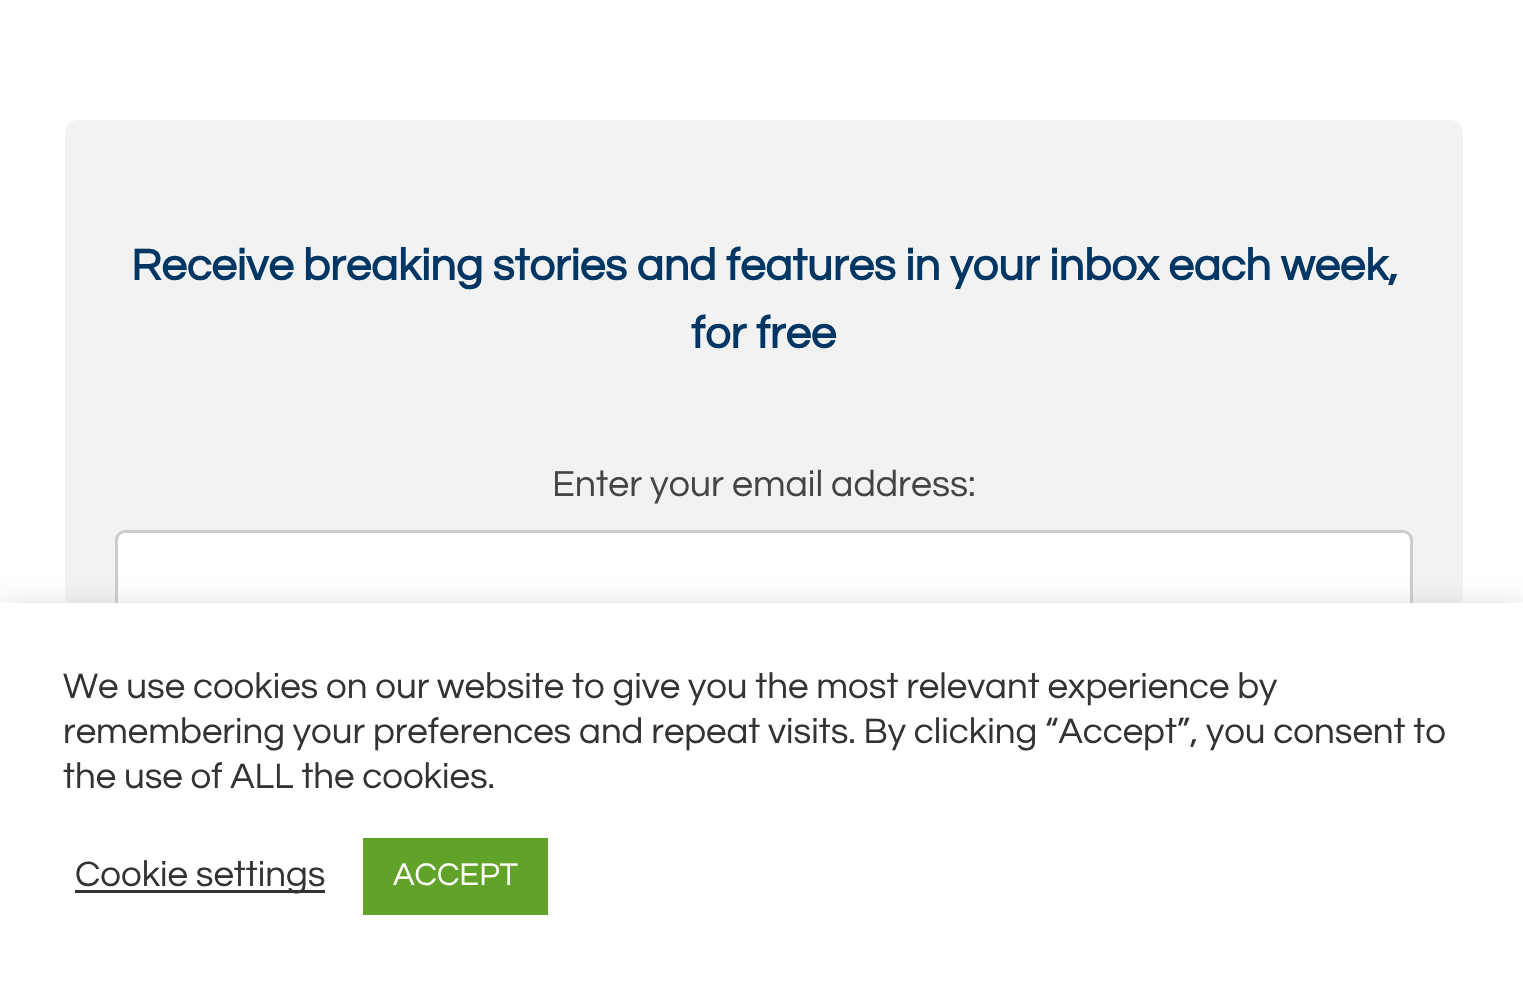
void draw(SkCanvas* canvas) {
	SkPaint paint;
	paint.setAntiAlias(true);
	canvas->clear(0xffffffff);
	paint.setColor(0xfff2f2f2);
	canvas->drawRoundRect(SkRect::MakeXYWH(65, 120, 1398, 808), 13, 13, paint);
	SkFont f1(fontMgr->matchFamilyStyle("Questrial", SkFontStyle::Bold()), 45.4);
	f1.setSubpixel(true);
	paint.setColor(0xff003664);
	canvas->drawString("Receive breaking stories and features in your inbox each week,", 131, 280, f1, paint);
	canvas->drawString("for free", 691, 348, f1, paint);
	SkFont f2(fontMgr->matchFamilyStyle("Questrial", SkFontStyle::Normal()), 37.5);
	f2.setSubpixel(true);
	paint.setColor(0xff444444);
	canvas->drawString("Enter your email address:", 552, 496, f2, paint);
	paint.setColor(0xffffffff);
	canvas->drawRoundRect(SkRect::MakeXYWH(116.5, 531.5, 1295, 92), 8.5, 8.5, paint);
	paint.setStroke(true);
	paint.setStrokeWidth(3);
	paint.setColor(0xffcccccc);
	canvas->drawRoundRect(SkRect::MakeXYWH(116.5, 531.5, 1295, 92), 8.5, 8.5, paint);
	paint.setStroke(false);
	paint.setColor(0x4dacabab);
	paint.setMaskFilter(SkMaskFilter::MakeBlur(kNormal_SkBlurStyle, 12.5));
	canvas->drawRect(SkRect::MakeXYWH(0, 600, 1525, 388), paint);
	paint.setMaskFilter(nullptr);
	paint.setColor(0xffffffff);
	canvas->drawRect(SkRect::MakeXYWH(0, 603, 1523, 385), paint);
	SkFont f3(fontMgr->matchFamilyStyle("Questrial", SkFontStyle::Normal()), 36.65);
	f3.setSubpixel(true);
	paint.setColor(0xff333333);
	canvas->drawString("We use cookies on our website to give you the most relevant experience by", 63, 698, f3, paint);
	canvas->drawString("remembering your preferences and repeat visits. By clicking “Accept”, you consent to", 63, 743, f3, paint);
	canvas->drawString("the use of ALL the cookies.", 63, 788, f3, paint);
	canvas->drawRect(SkRect::MakeXYWH(75, 890, 250, 3), paint);
	canvas->drawString("Cookie settings", 75, 886, f3, paint);
	paint.setColor(0xff61a229);
	canvas->drawRect(SkRect::MakeXYWH(363, 838, 185, 77), paint);
	SkFont f4(fontMgr->matchFamilyStyle("Questrial", SkFontStyle::Normal()), 32.5);
	f4.setSubpixel(true);
	paint.setColor(0xffffffff);
	canvas->drawString("ACCEPT", 393, 885, f4, paint);
}
